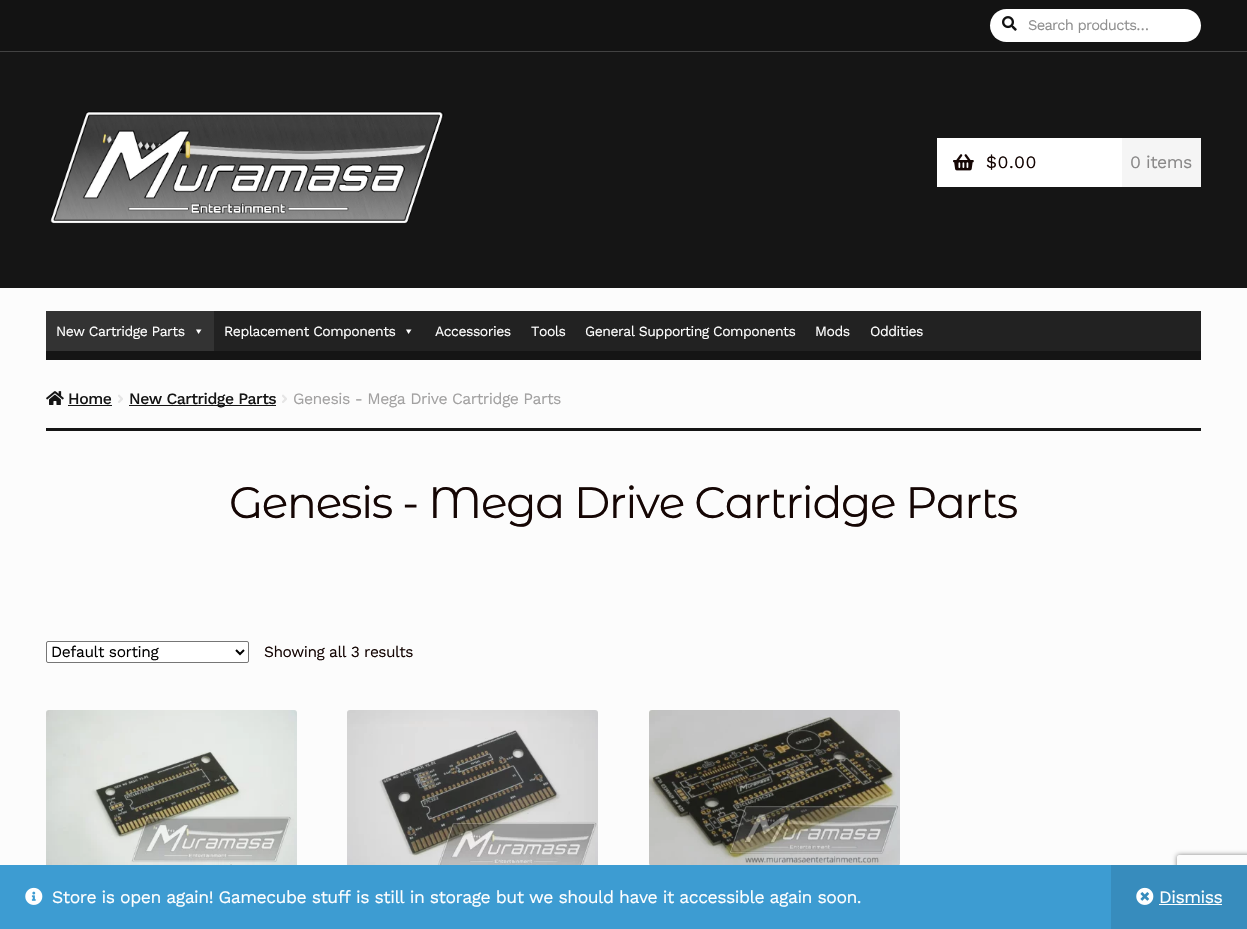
void draw(SkCanvas* canvas) {
	SkPaint paint;
	paint.setAntiAlias(true);
	auto spacedText = [&](const char* s, float x, float y, const SkFont& font, const SkPaint& ink, float letter, float word) {
		std::vector<SkGlyphID> glyphs(font.countText(s, strlen(s), SkTextEncoding::kUTF8));
		std::vector<float> xs(glyphs.size());
		font.textToGlyphs(s, strlen(s), SkTextEncoding::kUTF8, glyphs);
		font.getXPos(glyphs, xs, x);
		float extra = 0;
		for (size_t i = 0; i < glyphs.size(); i++) {
			xs[i] += extra;
			extra += letter + word * (glyphs[i] == font.unicharToGlyph(' '));
		}
		canvas->drawTextBlob(SkTextBlob::MakeFromPosHGlyphs(glyphs, xs, y, font), 0, 0, ink);
	};
	auto svgPath = [&](const char* data, bool evenOdd = false) {
		SkPath result = *SkParsePath::FromSVGString(data);
		if (evenOdd) result.setFillType(SkPathFillType::kEvenOdd);
		return result;
	};
	canvas->clear(0xfffcfcfc);
	paint.setColor(0xff151515);
	canvas->drawRect(SkRect::MakeXYWH(0, 52, 1247, 236), paint);
	paint.setColor(0xff131313);
	canvas->drawRect(SkRect::MakeXYWH(0, 0, 1247, 51), paint);
	paint.setColor(0xff424242);
	canvas->drawRect(SkRect::MakeXYWH(0, 51, 1247, 1), paint);
	paint.setColor(0xffffffff);
	canvas->drawRoundRect(SkRect::MakeXYWH(990, 9, 211, 33), 16.5, 16.5, paint);
	canvas->drawImageRect(SkImages::DeferredFromEncodedData(SkData::MakeFromFileName("img1.png")), SkRect::MakeXYWH(1002, 16, 15, 15), SkSamplingOptions());
	SkFont f1(fontMgr->matchFamilyStyle("Work Sans", SkFontStyle::Normal()), 14.75);
	f1.setSubpixel(true);
	paint.setColor(0xff909090);
	spacedText("Search products…", 1028, 30, f1, paint, -0.75, 0);
	canvas->drawImageRect(SkImages::DeferredFromEncodedData(SkData::MakeFromFileName("img2.png")), SkRect::MakeXYWH(50, 111, 394, 113), SkSamplingOptions());
	paint.setColor(0xffffffff);
	canvas->drawRect(SkRect::MakeXYWH(937, 138, 185, 49), paint);
	canvas->drawImageRect(SkImages::DeferredFromEncodedData(SkData::MakeFromFileName("img3.png")), SkRect::MakeXYWH(953, 154, 21, 17), SkSamplingOptions());
	SkFont f2(fontMgr->matchFamilyStyle("Work Sans", SkFontStyle::Normal()), 17.6);
	f2.setSubpixel(true);
	paint.setColor(0xff150604);
	spacedText("$0.00", 986, 168, f2, paint, 0.5, 0);
	paint.setColor(0xfff5f5f5);
	canvas->drawRect(SkRect::MakeXYWH(1122, 138, 79, 49), paint);
	paint.setColor(0xff8a8989);
	spacedText("0 items", 1130, 168, f2, paint, -0.49, 0);
	paint.setColor(0xff151515);
	canvas->drawRect(SkRect::MakeXYWH(46, 351, 1155, 9), paint);
	paint.setColor(0xff222222);
	canvas->drawRect(SkRect::MakeXYWH(214, 311, 987, 40), paint);
	paint.setColor(0xff333333);
	canvas->drawRect(SkRect::MakeXYWH(46, 311, 168, 40), paint);
	SkFont f3(fontMgr->matchFamilyStyle("Work Sans", SkFontStyle::Normal()), 14);
	f3.setSubpixel(true);
	paint.setColor(0xffffffff);
	spacedText("New Cartridge Parts", 56, 336, f3, paint, -0.49, 0);
	canvas->drawPath(svgPath("M201.5 329.5L198.5 334L196 329.5Z"), paint);
	spacedText("Replacement Components", 224, 336, f3, paint, -0.49, 0);
	canvas->drawPath(svgPath("M411.5 329.5L408.5 334L406 329.5Z"), paint);
	spacedText("Accessories", 435, 336, f3, paint, -0.49, 0);
	spacedText("Tools", 531, 336, f3, paint, -0.49, 0);
	spacedText("General Supporting Components", 585, 336, f3, paint, -0.49, 0);
	spacedText("Mods", 815, 336, f3, paint, -0.49, 0);
	spacedText("Oddities", 870, 336, f3, paint, -0.49, 0);
	paint.setColor(0xff151515);
	canvas->drawRect(SkRect::MakeXYWH(46, 428, 1155, 3), paint);
	canvas->drawImageRect(SkImages::DeferredFromEncodedData(SkData::MakeFromFileName("img4.png")), SkRect::MakeXYWH(46, 391, 18, 14), SkSamplingOptions());
	SkFont f4(fontMgr->matchFamilyStyle("Work Sans", SkFontStyle(500, SkFontStyle::kNormal_Width, SkFontStyle::kUpright_Slant)), 15.8);
	f4.setSubpixel(true);
	spacedText("Home", 68, 404, f4, paint, -0.49, 0);
	canvas->drawRect(SkRect::MakeXYWH(68, 405, 44, 1), paint);
	canvas->drawImageRect(SkImages::DeferredFromEncodedData(SkData::MakeFromFileName("img5.png")), SkRect::MakeXYWH(118, 394, 5, 9), SkSamplingOptions());
	canvas->drawRect(SkRect::MakeXYWH(129, 405, 147, 1), paint);
	spacedText("New Cartridge Parts", 129, 404, f4, paint, -0.49, 0);
	canvas->drawImageRect(SkImages::DeferredFromEncodedData(SkData::MakeFromFileName("img5.png")), SkRect::MakeXYWH(282, 394, 5, 9), SkSamplingOptions());
	SkFont f5(fontMgr->matchFamilyStyle("Work Sans", SkFontStyle::Normal()), 15.8);
	f5.setSubpixel(true);
	paint.setColor(0xffa2a1a1);
	spacedText("Genesis - Mega Drive Cartridge Parts", 293, 404, f5, paint, -0.49, 0);
	SkFont f6(fontMgr->matchFamilyStyle("Montserrat Alternates", SkFontStyle::Normal()), 44);
	f6.setSubpixel(true);
	paint.setColor(0xff150604);
	spacedText("Genesis - Mega Drive Cartridge Parts", 229, 518, f6, paint, -1.25, 0);
	paint.setColor(0xffffffff);
	canvas->drawRoundRect(SkRect::MakeXYWH(46.5, 641.5, 202, 21), 1.5, 1.5, paint);
	paint.setStroke(true);
	paint.setStrokeWidth(1);
	paint.setColor(0xff767676);
	canvas->drawRoundRect(SkRect::MakeXYWH(46.5, 641.5, 202, 21), 1.5, 1.5, paint);
	paint.setStrokeWidth(2);
	paint.setColor(0xff000000);
	canvas->drawPath(svgPath("M236 650L240 654L244 650"), paint);
	SkFont f7(fontMgr->matchFamilyStyle("Work Sans", SkFontStyle::Normal()), 15.5);
	f7.setSubpixel(true);
	paint.setStroke(false);
	spacedText("Default sorting", 51, 657, f7, paint, -0.4, 0);
	paint.setColor(0xff150604);
	spacedText("Showing all 3 results", 264, 657, f7, paint, -0.49, 0);
	canvas->drawImageRect(SkImages::DeferredFromEncodedData(SkData::MakeFromFileName("img6.png")), SkRect::MakeXYWH(46, 710, 251, 155), SkSamplingOptions());
	canvas->drawImageRect(SkImages::DeferredFromEncodedData(SkData::MakeFromFileName("img7.png")), SkRect::MakeXYWH(347, 710, 251, 155), SkSamplingOptions());
	canvas->drawImageRect(SkImages::DeferredFromEncodedData(SkData::MakeFromFileName("img8.png")), SkRect::MakeXYWH(649, 710, 251, 155), SkSamplingOptions());
	canvas->save();
	canvas->clipPath(svgPath("M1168 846H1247V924H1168ZM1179 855H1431C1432 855 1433 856 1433 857V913C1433 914 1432 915 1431 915H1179C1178 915 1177 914 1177 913V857C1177 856 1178 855 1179 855Z", true), true);
	paint.setColor(0xff808080);
	paint.setMaskFilter(SkMaskFilter::MakeBlur(kNormal_SkBlurStyle, 2.5));
	canvas->drawRoundRect(SkRect::MakeXYWH(1177, 855, 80, 60), 2, 2, paint);
	paint.setMaskFilter(nullptr);
	canvas->restore();
	paint.setColor(0xff3d9cd2);
	canvas->drawRect(SkRect::MakeXYWH(0, 865, 1111, 64), paint);
	canvas->drawImageRect(SkImages::DeferredFromEncodedData(SkData::MakeFromFileName("img9.png")), SkRect::MakeXYWH(25, 887, 18, 18), SkSamplingOptions());
	paint.setColor(0xffffffff);
	spacedText("Store is open again! Gamecube stuff is still in storage but we should have it accessible again soon.", 52, 903, f2, paint, -0.49, 0);
	paint.setColor(0xff378cbd);
	canvas->drawRect(SkRect::MakeXYWH(1111, 865, 136, 64), paint);
	canvas->drawImageRect(SkImages::DeferredFromEncodedData(SkData::MakeFromFileName("img10.png")), SkRect::MakeXYWH(1136, 887, 18, 18), SkSamplingOptions());
	paint.setColor(0xffffffff);
	spacedText("Dismiss", 1159, 903, f2, paint, -0.49, 0);
	canvas->drawRect(SkRect::MakeXYWH(1159, 904, 63, 1), paint);
}
